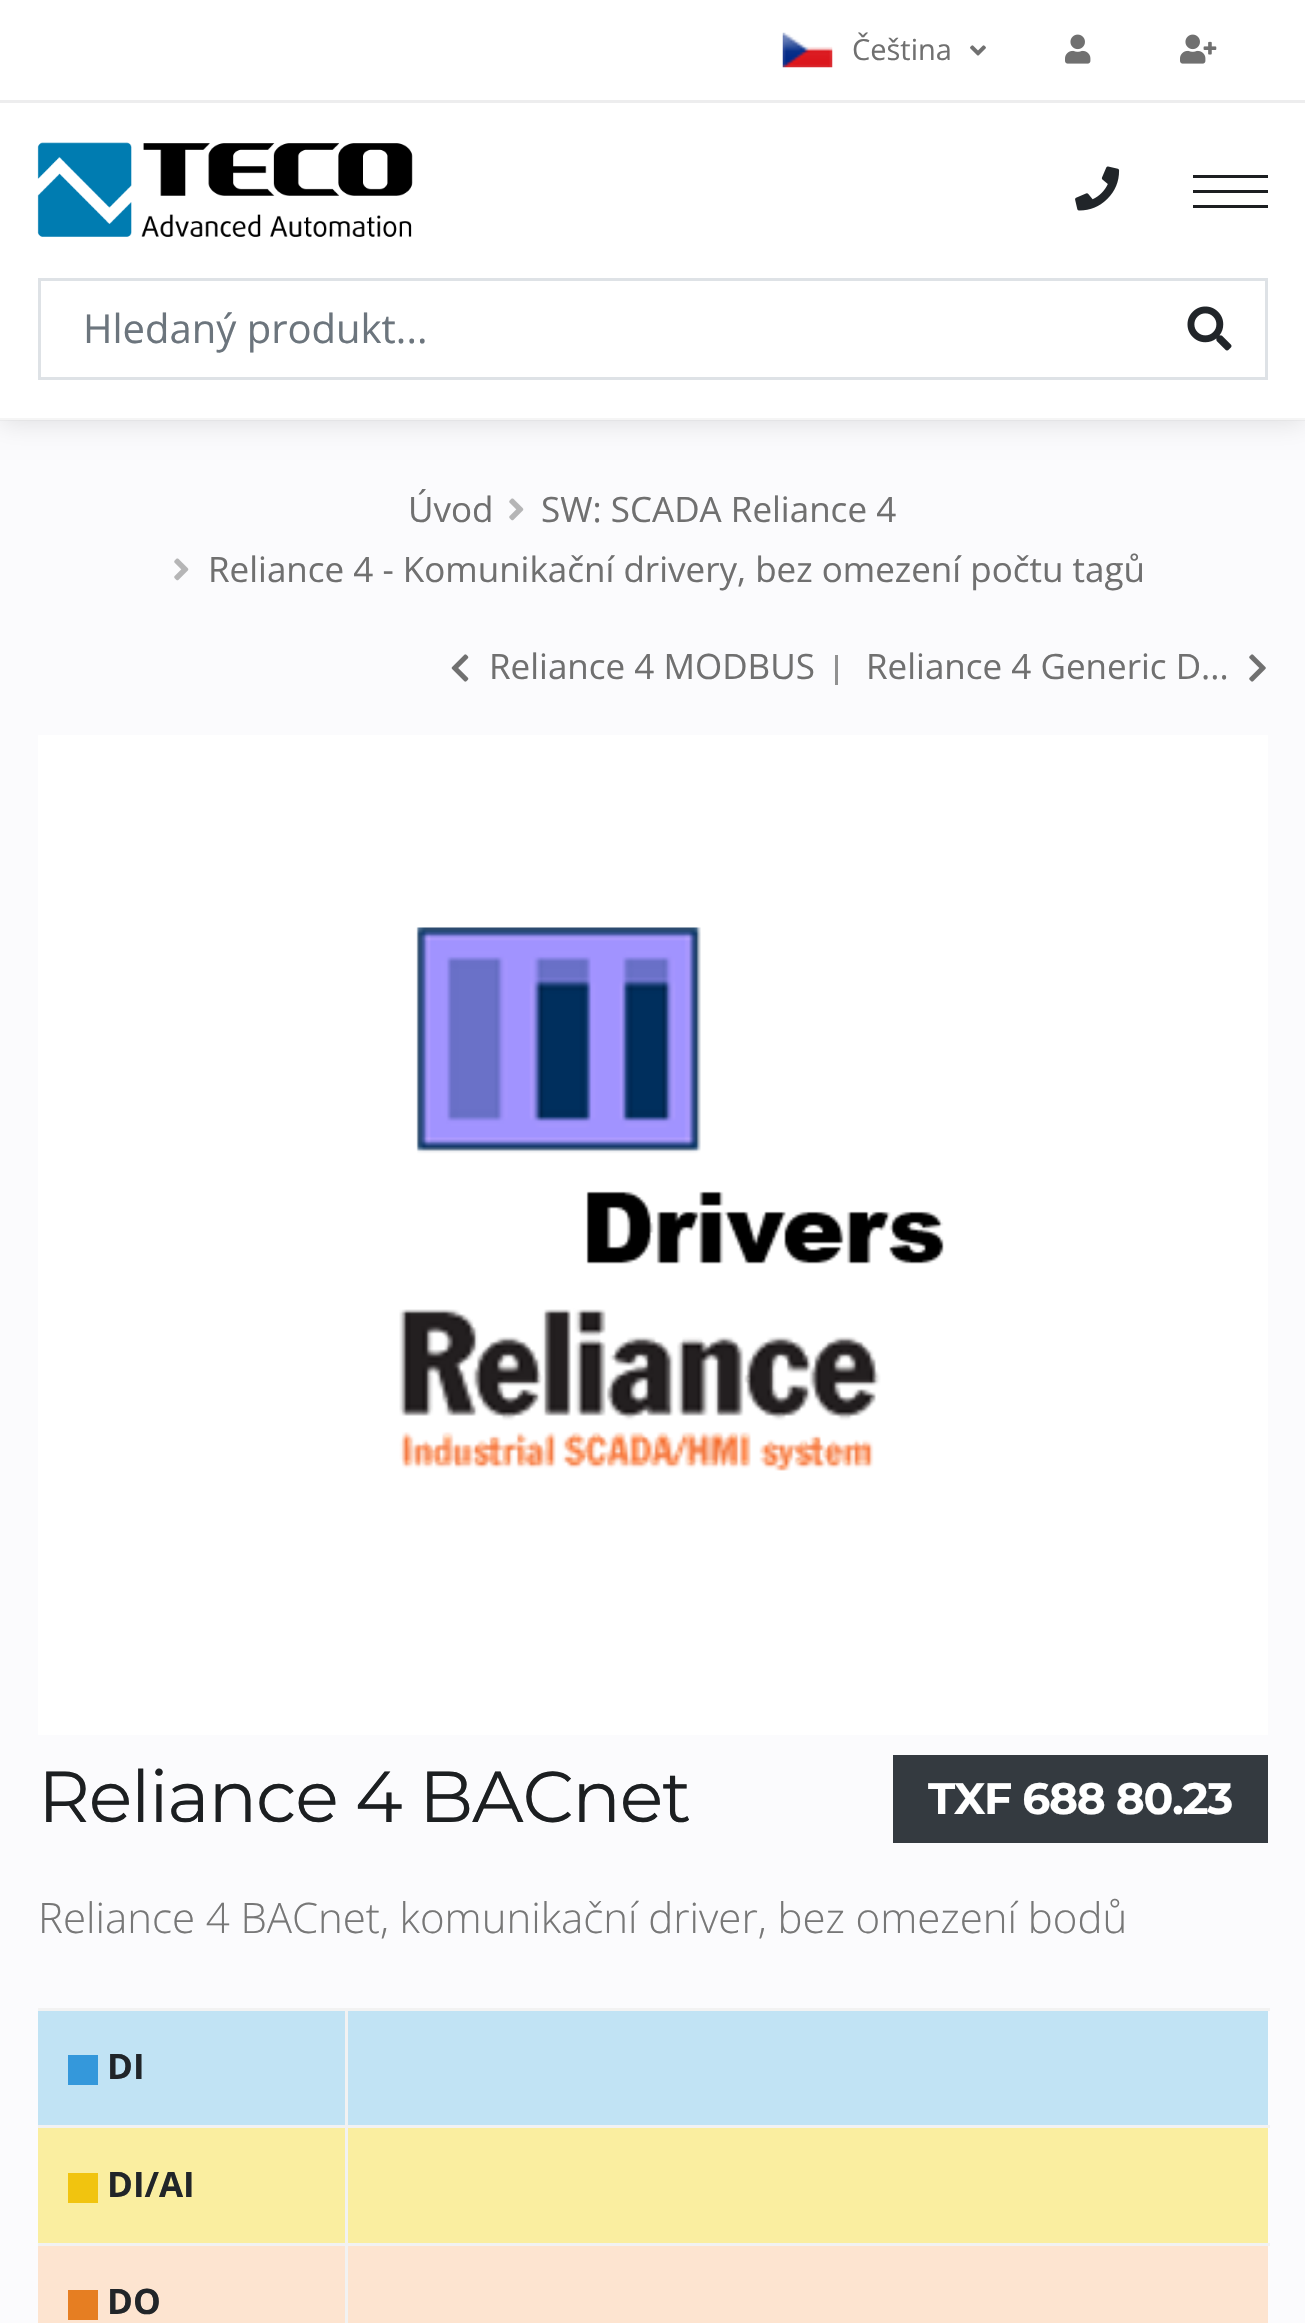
void draw(SkCanvas* canvas) {
	SkPaint paint;
	paint.setAntiAlias(true);
	auto spacedText = [&](const char* s, float x, float y, const SkFont& font, const SkPaint& ink, float letter, float word) {
		std::vector<SkGlyphID> glyphs(font.countText(s, strlen(s), SkTextEncoding::kUTF8));
		std::vector<float> xs(glyphs.size());
		font.textToGlyphs(s, strlen(s), SkTextEncoding::kUTF8, glyphs);
		font.getXPos(glyphs, xs, x);
		float extra = 0;
		for (size_t i = 0; i < glyphs.size(); i++) {
			xs[i] += extra;
			extra += letter + word * (glyphs[i] == font.unicharToGlyph(' '));
		}
		canvas->drawTextBlob(SkTextBlob::MakeFromPosHGlyphs(glyphs, xs, y, font), 0, 0, ink);
	};
	canvas->clear(0xfffbfbfd);
	paint.setColor(0x1c000000);
	paint.setMaskFilter(SkMaskFilter::MakeBlur(kNormal_SkBlurStyle, 12.5));
	canvas->drawRect(SkRect::MakeXYWH(0, 3, 1305, 420), paint);
	paint.setMaskFilter(nullptr);
	paint.setColor(0xffffffff);
	canvas->drawRect(SkRect::MakeXYWH(0, 0, 1305, 420), paint);
	paint.setColor(0xffededee);
	canvas->drawRect(SkRect::MakeXYWH(0, 100, 1305, 3), paint);
	canvas->drawImageRect(SkImages::DeferredFromEncodedData(SkData::MakeFromFileName("img1.png")), SkRect::MakeXYWH(782, 32, 51, 36), SkSamplingOptions());
	SkFont f1(fontMgr->matchFamilyStyle("Open Sans", SkFontStyle::Normal()), 29);
	f1.setSubpixel(true);
	paint.setColor(0xff707070);
	canvas->drawString("Čeština", 852, 60, f1, paint);
	canvas->drawImageRect(SkImages::DeferredFromEncodedData(SkData::MakeFromFileName("img2.png")), SkRect::MakeXYWH(970, 45, 16, 11), SkSamplingOptions());
	canvas->drawImageRect(SkImages::DeferredFromEncodedData(SkData::MakeFromFileName("img3.png")), SkRect::MakeXYWH(1065, 34, 26, 30), SkSamplingOptions());
	canvas->drawImageRect(SkImages::DeferredFromEncodedData(SkData::MakeFromFileName("img4.png")), SkRect::MakeXYWH(1180, 34, 37, 30), SkSamplingOptions());
	canvas->drawImageRect(SkImages::DeferredFromEncodedData(SkData::MakeFromFileName("img5.png")), SkRect::MakeXYWH(37, 142, 376, 95), SkSamplingOptions());
	canvas->drawImageRect(SkImages::DeferredFromEncodedData(SkData::MakeFromFileName("img6.png")), SkRect::MakeXYWH(1075, 166, 45, 45), SkSamplingOptions());
	paint.setColor(0xff1c1f21);
	canvas->drawRect(SkRect::MakeXYWH(1193, 175, 75, 3), paint);
	canvas->drawRect(SkRect::MakeXYWH(1193, 190, 75, 3), paint);
	canvas->drawRect(SkRect::MakeXYWH(1193, 205, 75, 3), paint);
	paint.setStroke(true);
	paint.setStrokeWidth(3);
	paint.setColor(0xffdee2e6);
	canvas->drawRect(SkRect::MakeXYWH(39.5, 279.5, 1227, 99), paint);
	SkFont f2(fontMgr->matchFamilyStyle("Open Sans", SkFontStyle::Normal()), 40);
	f2.setSubpixel(true);
	paint.setStroke(false);
	paint.setColor(0xff6c757d);
	canvas->drawString("Hledaný produkt...", 83, 343, f2, paint);
	canvas->drawImageRect(SkImages::DeferredFromEncodedData(SkData::MakeFromFileName("img7.png")), SkRect::MakeXYWH(1187, 306, 45, 45), SkSamplingOptions());
	paint.setColor(0x33cccccc);
	canvas->drawRect(SkRect::MakeXYWH(0, 418, 1305, 3), paint);
	SkFont f3(fontMgr->matchFamilyStyle("Open Sans", SkFontStyle::Normal()), 35);
	f3.setSubpixel(true);
	paint.setColor(0xff707070);
	canvas->drawString("Úvod", 408, 522, f3, paint);
	canvas->drawImageRect(SkImages::DeferredFromEncodedData(SkData::MakeFromFileName("img8.png")), SkRect::MakeXYWH(509, 498, 15, 23), SkSamplingOptions());
	canvas->drawString("SW: SCADA Reliance 4", 541, 522, f3, paint);
	canvas->drawImageRect(SkImages::DeferredFromEncodedData(SkData::MakeFromFileName("img8.png")), SkRect::MakeXYWH(174, 558, 15, 23), SkSamplingOptions());
	canvas->drawString("Reliance 4 - Komunikační drivery, bez omezení počtu tagů", 208, 582, f3, paint);
	canvas->drawImageRect(SkImages::DeferredFromEncodedData(SkData::MakeFromFileName("img9.png")), SkRect::MakeXYWH(451, 654, 18, 28), SkSamplingOptions());
	canvas->drawString("Reliance 4 MODBUS", 489, 679, f3, paint);
	paint.setColor(0xff919191);
	canvas->drawRect(SkRect::MakeXYWH(835, 655, 3, 30), paint);
	paint.setColor(0xff707070);
	canvas->drawString("Reliance 4 Generic D...", 866, 679, f3, paint);
	canvas->drawImageRect(SkImages::DeferredFromEncodedData(SkData::MakeFromFileName("img10.png")), SkRect::MakeXYWH(1249, 654, 17, 28), SkSamplingOptions());
	paint.setColor(0xffffffff);
	canvas->drawRect(SkRect::MakeXYWH(38, 735, 1230, 1000), paint);
	canvas->drawImageRect(SkImages::DeferredFromEncodedData(SkData::MakeFromFileName("img11.png")), SkRect::MakeXYWH(399, 927, 545, 544), SkSamplingOptions());
	SkFont f4(fontMgr->matchFamilyStyle("Montserrat", SkFontStyle::Normal()), 72);
	f4.setSubpixel(true);
	paint.setColor(0xff1c1f21);
	spacedText("Reliance 4 BACnet", 38, 1822, f4, paint, -1.25, 0);
	paint.setColor(0xff343a40);
	canvas->drawRect(SkRect::MakeXYWH(893, 1755, 375, 88), paint);
	SkFont f5(fontMgr->matchFamilyStyle("Montserrat", SkFontStyle::Bold()), 44);
	f5.setSubpixel(true);
	paint.setColor(0xffffffff);
	spacedText("TXF 688 80.23", 928, 1814, f5, paint, -1.25, 0);
	SkFont f6(fontMgr->matchFamilyStyle("Open Sans", SkFontStyle(300, SkFontStyle::kNormal_Width, SkFontStyle::kUpright_Slant)), 42);
	f6.setSubpixel(true);
	paint.setColor(0xff777777);
	spacedText("Reliance 4 BACnet, komunikační driver, bez omezení bodů", 38, 1933, f6, paint, 0, -0.25);
	paint.setColor(0xffc1e3f4);
	canvas->drawRect(SkRect::MakeXYWH(38, 2011, 1230, 114), paint);
	paint.setColor(0xfff2f2f2);
	canvas->drawRect(SkRect::MakeXYWH(38, 2008, 1232, 3), paint);
	canvas->drawRect(SkRect::MakeXYWH(38, 2125, 1232, 3), paint);
	paint.setColor(0xfffaeea0);
	canvas->drawRect(SkRect::MakeXYWH(38, 2128, 1230, 115), paint);
	paint.setColor(0xfff2f2f2);
	canvas->drawRect(SkRect::MakeXYWH(38, 2243, 1232, 3), paint);
	paint.setColor(0xfffde4d0);
	canvas->drawRect(SkRect::MakeXYWH(38, 2246, 1230, 77), paint);
	paint.setColor(0xfff2f2f2);
	canvas->drawRect(SkRect::MakeXYWH(345, 2243, 3, 80), paint);
	canvas->drawRect(SkRect::MakeXYWH(345, 2125, 3, 120), paint);
	canvas->drawRect(SkRect::MakeXYWH(345, 2008, 3, 120), paint);
	paint.setColor(0xff3498db);
	canvas->drawRect(SkRect::MakeXYWH(68, 2055, 30, 30), paint);
	SkFont f7(fontMgr->matchFamilyStyle("Open Sans", SkFontStyle::Bold()), 35);
	f7.setSubpixel(true);
	paint.setColor(0xff212529);
	canvas->drawString("DI", 107, 2079, f7, paint);
	paint.setColor(0xfff1c40f);
	canvas->drawRect(SkRect::MakeXYWH(68, 2173, 30, 30), paint);
	paint.setColor(0xff212529);
	canvas->drawString("DI/AI", 107, 2197, f7, paint);
	paint.setColor(0xffe67e22);
	canvas->drawRect(SkRect::MakeXYWH(68, 2290, 30, 30), paint);
	paint.setColor(0xff212529);
	canvas->drawString("DO", 107, 2314, f7, paint);
}
